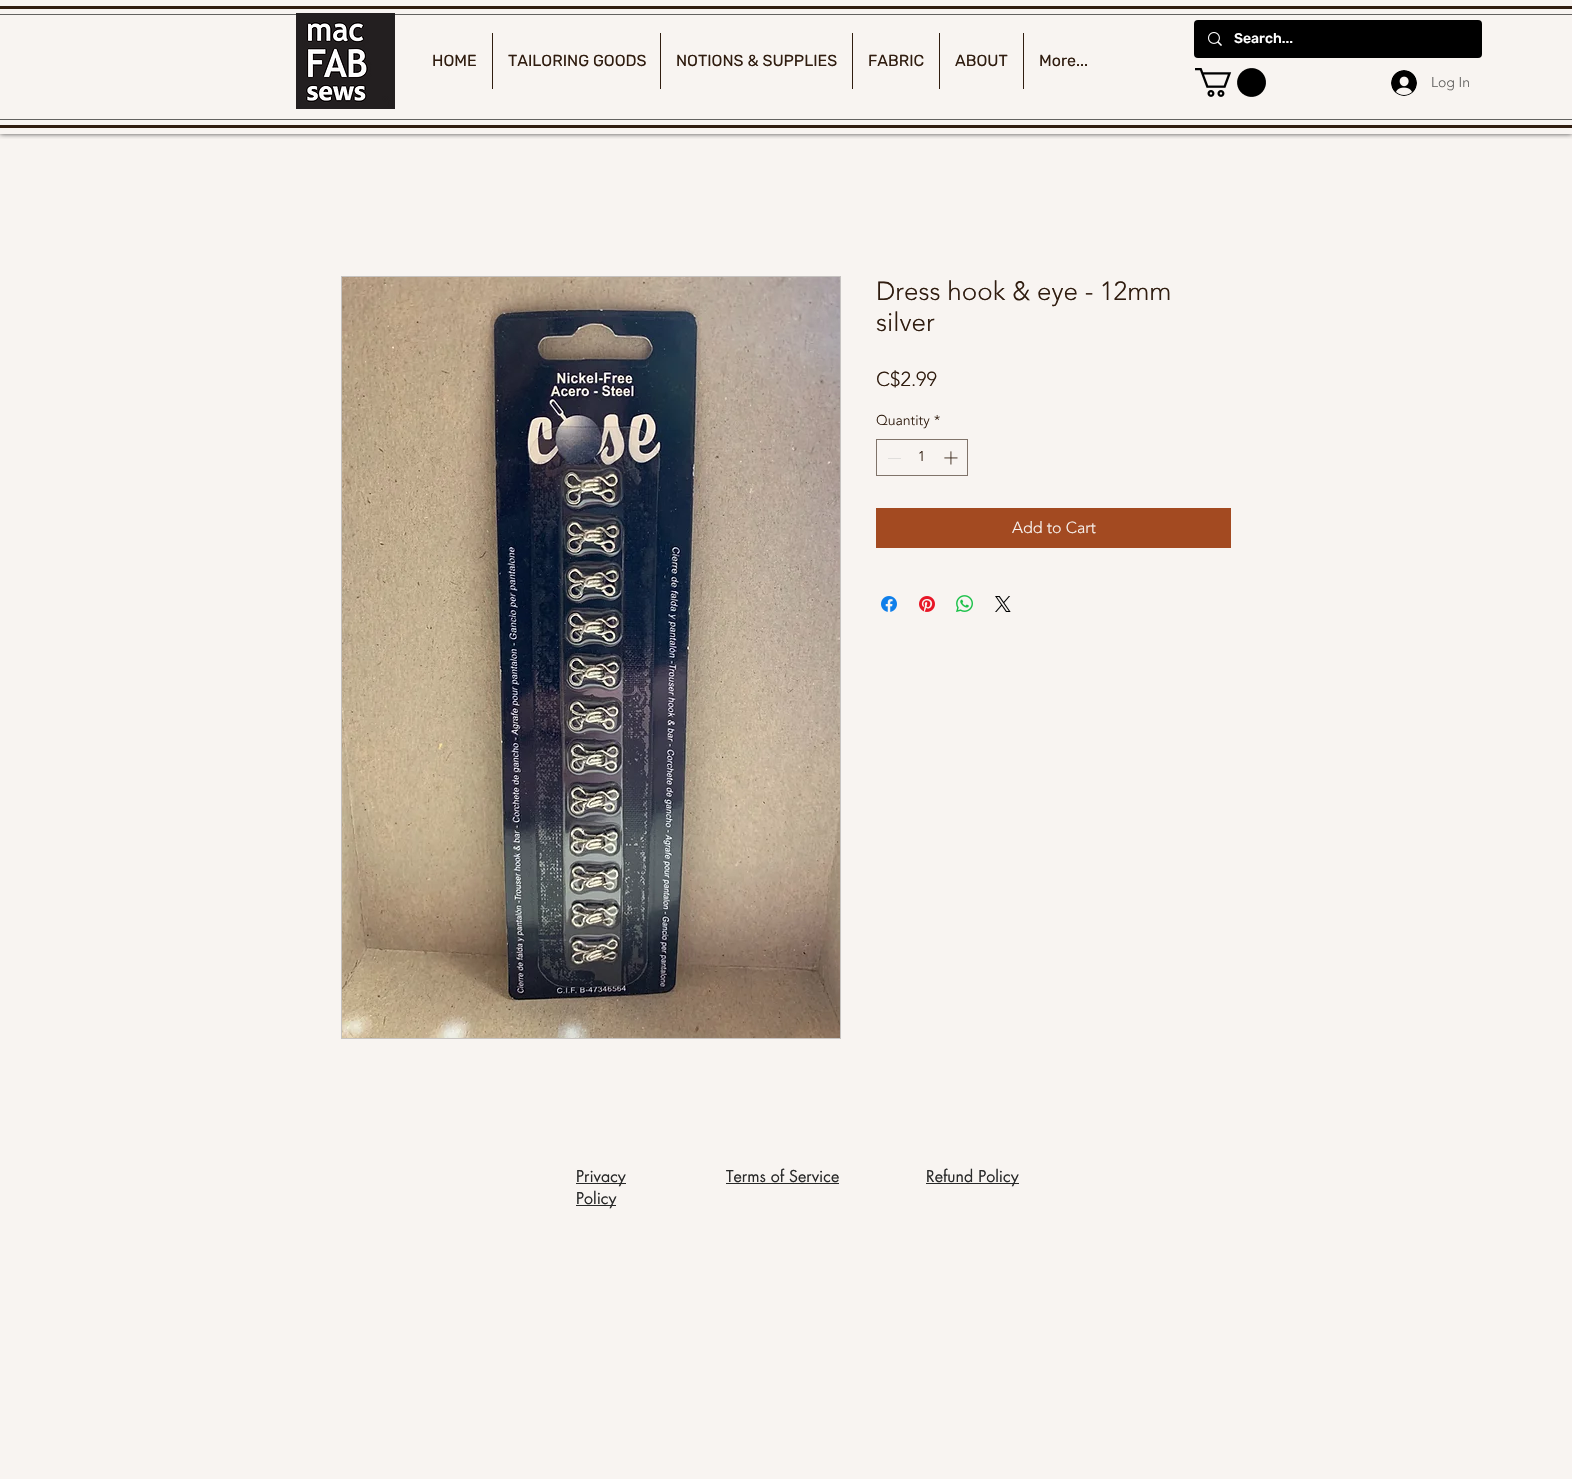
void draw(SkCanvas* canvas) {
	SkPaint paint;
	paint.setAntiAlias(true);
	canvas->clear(0xfff8f4f1);
	canvas->save();
	canvas->clipRect(SkRect::MakeXYWH(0, 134, 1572, 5));
	paint.setColor(0xb3000000);
	paint.setMaskFilter(SkMaskFilter::MakeBlur(kNormal_SkBlurStyle, 2.5));
	canvas->drawRect(SkRect::MakeXYWH(0, 0, 1572, 134), paint);
	paint.setMaskFilter(nullptr);
	canvas->restore();
	paint.setColor(0xff301d10);
	canvas->drawRect(SkRect::MakeXYWH(0, 6, 1572, 3), paint);
	canvas->drawRect(SkRect::MakeXYWH(0, 125, 1572, 3), paint);
	paint.setColor(0xff636260);
	canvas->drawRect(SkRect::MakeXYWH(0, 14, 1572, 1), paint);
	canvas->drawRect(SkRect::MakeXYWH(0, 119, 1572, 1), paint);
	canvas->drawImageRect(SkImages::DeferredFromEncodedData(SkData::MakeFromFileName("img1.png")), SkRect::MakeXYWH(296, 13, 99, 96), SkSamplingOptions());
	paint.setColor(0xff000000);
	canvas->drawRoundRect(SkRect::MakeXYWH(1194, 20, 288, 38), 4, 4, paint);
	canvas->drawImageRect(SkImages::DeferredFromEncodedData(SkData::MakeFromFileName("img2.png")), SkRect::MakeXYWH(1208, 32, 14, 14), SkSamplingOptions());
	SkFont f1(fontMgr->matchFamilyStyle("Rubik", SkFontStyle(500, SkFontStyle::kNormal_Width, SkFontStyle::kUpright_Slant)), 14);
	f1.setSubpixel(true);
	paint.setColor(0xffffffff);
	canvas->drawString("Search...", 1234, 43, f1, paint);
	SkFont f2(fontMgr->matchFamilyStyle("Rubik", SkFontStyle::Normal()), 16);
	f2.setSubpixel(true);
	paint.setColor(0xff301d10);
	canvas->drawString("HOME", 432, 66, f2, paint);
	canvas->drawRect(SkRect::MakeXYWH(492, 33, 1, 56), paint);
	canvas->drawString("TAILORING GOODS", 508, 66, f2, paint);
	canvas->drawRect(SkRect::MakeXYWH(660, 33, 1, 56), paint);
	canvas->drawString("NOTIONS & SUPPLIES", 676, 66, f2, paint);
	canvas->drawRect(SkRect::MakeXYWH(852, 33, 1, 56), paint);
	canvas->drawString("FABRIC", 868, 66, f2, paint);
	canvas->drawRect(SkRect::MakeXYWH(939, 33, 1, 56), paint);
	canvas->drawString("ABOUT", 955, 66, f2, paint);
	canvas->drawRect(SkRect::MakeXYWH(1023, 33, 1, 56), paint);
	canvas->drawString("More...", 1039, 66, f2, paint);
	canvas->drawImageRect(SkImages::DeferredFromEncodedData(SkData::MakeFromFileName("img3.png")), SkRect::MakeXYWH(1195, 68, 71, 29), SkSamplingOptions());
	canvas->drawImageRect(SkImages::DeferredFromEncodedData(SkData::MakeFromFileName("img4.png")), SkRect::MakeXYWH(1391, 70, 26, 26), SkSamplingOptions());
	SkFont f3(fontMgr->matchFamilyStyle("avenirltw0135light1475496", SkFontStyle(300, SkFontStyle::kNormal_Width, SkFontStyle::kUpright_Slant)), 14);
	f3.setSubpixel(true);
	paint.setColor(0xff636260);
	canvas->drawString("Log In", 1431, 87, f3, paint);
	paint.setStroke(true);
	paint.setStrokeWidth(1);
	paint.setColor(0xffc6c3c1);
	canvas->drawRect(SkRect::MakeXYWH(341.5, 276.5, 499, 762), paint);
	canvas->drawImageRect(SkImages::DeferredFromEncodedData(SkData::MakeFromFileName("img5.png")), SkRect::MakeXYWH(342, 277, 498, 761), SkSamplingOptions());
	SkFont f4(fontMgr->matchFamilyStyle("avenirltw0135light1475496", SkFontStyle(300, SkFontStyle::kNormal_Width, SkFontStyle::kUpright_Slant)), 26);
	f4.setSubpixel(true);
	paint.setStroke(false);
	paint.setColor(0xff301d10);
	canvas->drawString("Dress hook & eye - 12mm", 876, 300, f4, paint);
	canvas->drawString("silver", 876, 331, f4, paint);
	SkFont f5(fontMgr->matchFamilyStyle("avenirltw0135light1475496", SkFontStyle(300, SkFontStyle::kNormal_Width, SkFontStyle::kUpright_Slant)), 20);
	f5.setSubpixel(true);
	canvas->drawString("C$2.99", 876, 386, f5, paint);
	canvas->drawString("Quantity", 876, 425, f3, paint);
	canvas->drawString("*", 934, 425, f3, paint);
	paint.setStroke(true);
	paint.setColor(0xff80736a);
	canvas->drawRect(SkRect::MakeXYWH(876.5, 439.5, 91, 36), paint);
	paint.setStroke(false);
	paint.setColor(0xffe0dedc);
	canvas->drawRect(SkRect::MakeXYWH(888, 458, 13, 1), paint);
	paint.setColor(0xff301d10);
	canvas->drawString("1", 918, 461, f3, paint);
	canvas->drawImageRect(SkImages::DeferredFromEncodedData(SkData::MakeFromFileName("img6.png")), SkRect::MakeXYWH(944, 451, 14, 14), SkSamplingOptions());
	paint.setColor(0xffa34a21);
	canvas->drawRect(SkRect::MakeXYWH(876, 508, 355, 40), paint);
	SkFont f6(fontMgr->matchFamilyStyle("avenirltw0135light1475496", SkFontStyle(300, SkFontStyle::kNormal_Width, SkFontStyle::kUpright_Slant)), 16);
	f6.setSubpixel(true);
	paint.setColor(0xfff8f4f1);
	canvas->drawString("Add to Cart", 1012, 533, f6, paint);
	canvas->drawImageRect(SkImages::DeferredFromEncodedData(SkData::MakeFromFileName("img7.png")), SkRect::MakeXYWH(881, 596, 16, 16), SkSamplingOptions());
	canvas->drawImageRect(SkImages::DeferredFromEncodedData(SkData::MakeFromFileName("img8.png")), SkRect::MakeXYWH(919, 596, 16, 16), SkSamplingOptions());
	canvas->drawImageRect(SkImages::DeferredFromEncodedData(SkData::MakeFromFileName("img9.png")), SkRect::MakeXYWH(956, 595, 17, 17), SkSamplingOptions());
	canvas->drawImageRect(SkImages::DeferredFromEncodedData(SkData::MakeFromFileName("img10.png")), SkRect::MakeXYWH(995, 596, 16, 16), SkSamplingOptions());
	paint.setColor(0xff292929);
	canvas->drawRect(SkRect::MakeXYWH(576, 1183, 50, 1), paint);
	SkFont f7(fontMgr->matchFamilyStyle("futura", SkFontStyle::Normal()), 16);
	f7.setSubpixel(true);
	canvas->drawString("Privacy", 576, 1182, f7, paint);
	canvas->drawRect(SkRect::MakeXYWH(576, 1205, 40, 1), paint);
	canvas->drawString("Policy", 576, 1204, f7, paint);
	canvas->drawString("Terms of Service", 726, 1182, f7, paint);
	canvas->drawRect(SkRect::MakeXYWH(726, 1183, 113, 1), paint);
	canvas->drawRect(SkRect::MakeXYWH(926, 1183, 93, 1), paint);
	canvas->drawString("Refund Policy", 926, 1182, f7, paint);
}
